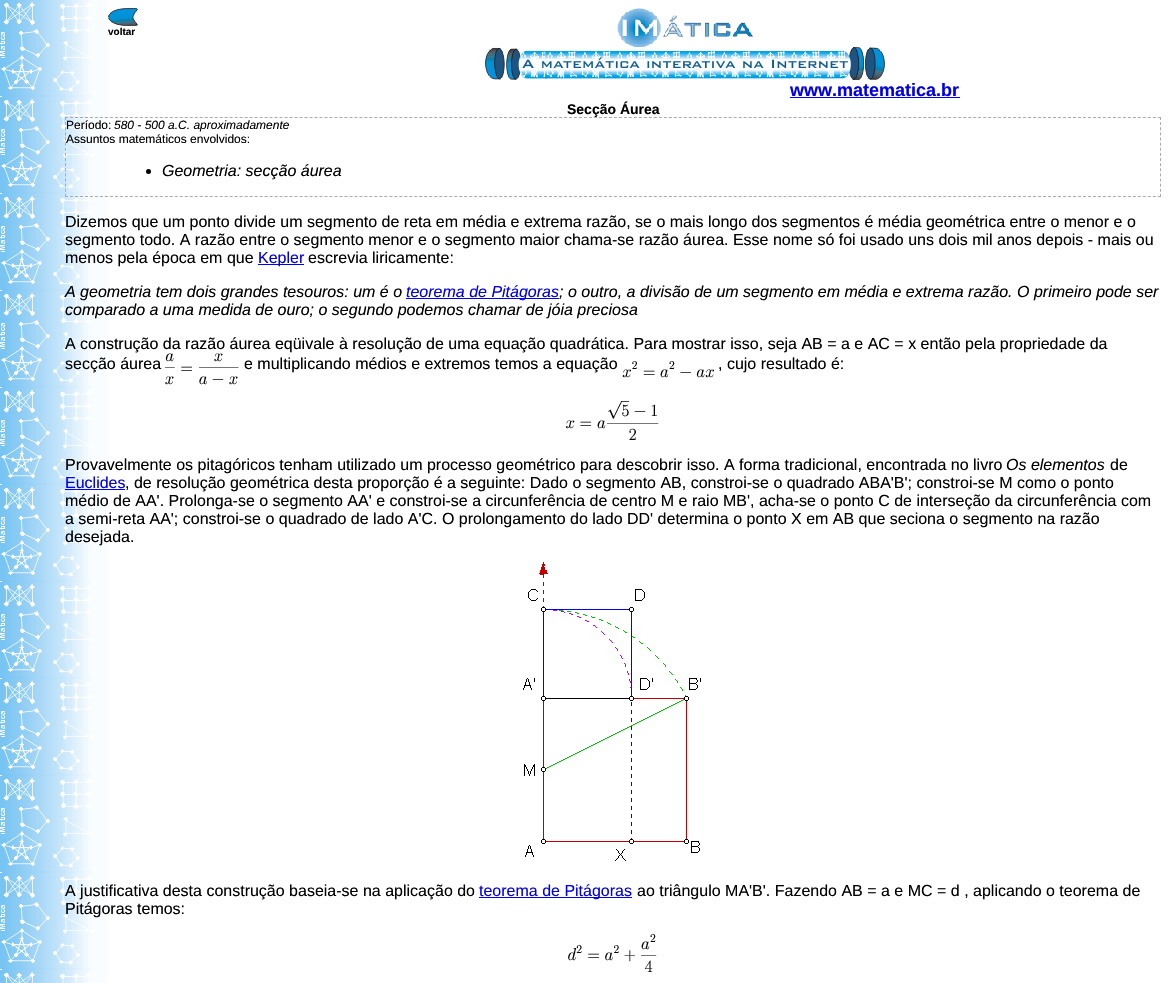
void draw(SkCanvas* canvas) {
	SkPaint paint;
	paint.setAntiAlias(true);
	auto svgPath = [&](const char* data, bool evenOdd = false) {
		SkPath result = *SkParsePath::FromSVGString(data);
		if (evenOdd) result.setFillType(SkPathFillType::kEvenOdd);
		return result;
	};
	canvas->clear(0xffffffff);
	canvas->drawImageRect(SkImages::DeferredFromEncodedData(SkData::MakeFromFileName("img1.png")), SkRect::MakeXYWH(0, 0, 108, 983), SkSamplingOptions());
	canvas->drawImageRect(SkImages::DeferredFromEncodedData(SkData::MakeFromFileName("img2.png")), SkRect::MakeXYWH(108, 8, 30, 18), SkSamplingOptions());
	SkFont f1(fontMgr->matchFamilyStyle("Liberation Sans", SkFontStyle::Bold()), 10);
	f1.setSubpixel(true);
	paint.setColor(0xff000000);
	canvas->drawString("voltar", 108, 35, f1, paint);
	canvas->drawImageRect(SkImages::DeferredFromEncodedData(SkData::MakeFromFileName("img3.png")), SkRect::MakeXYWH(617, 8, 136, 39), SkSamplingOptions());
	canvas->drawImageRect(SkImages::DeferredFromEncodedData(SkData::MakeFromFileName("img4.png")), SkRect::MakeXYWH(485, 47, 400, 33), SkSamplingOptions());
	SkFont f2(fontMgr->matchFamilyStyle("Liberation Sans", SkFontStyle::Bold()), 18);
	f2.setSubpixel(true);
	paint.setColor(0xff0000ee);
	canvas->drawString("www.matematica.br", 790, 96, f2, paint);
	canvas->drawRect(SkRect::MakeXYWH(790, 97, 170, 1), paint);
	SkFont f3(fontMgr->matchFamilyStyle("Liberation Sans", SkFontStyle::Bold()), 14);
	f3.setSubpixel(true);
	paint.setColor(0xff000000);
	canvas->drawString("Secção Áurea", 567, 114, f3, paint);
	paint.setStroke(true);
	paint.setStrokeWidth(1);
	paint.setColor(0xffaaaaaa);
	paint.setPathEffect(SkDashPathEffect::Make({{3, 1.99f}}, 0));
	canvas->drawPath(svgPath("M65 117.5H1161"), paint);
	paint.setPathEffect(nullptr);
	paint.setPathEffect(SkDashPathEffect::Make({{3, 2.13f}}, 0));
	canvas->drawPath(svgPath("M1160.5 117V197"), paint);
	paint.setPathEffect(nullptr);
	paint.setPathEffect(SkDashPathEffect::Make({{3, 1.99f}}, 0));
	canvas->drawPath(svgPath("M65 196.5H1161"), paint);
	paint.setPathEffect(nullptr);
	paint.setPathEffect(SkDashPathEffect::Make({{3, 2.13f}}, 0));
	canvas->drawPath(svgPath("M65.5 117V197"), paint);
	paint.setPathEffect(nullptr);
	SkFont f4(fontMgr->matchFamilyStyle("Liberation Sans", SkFontStyle::Normal()), 12);
	f4.setSubpixel(true);
	paint.setStroke(false);
	paint.setColor(0xff000000);
	canvas->drawString("Período:", 66, 129, f4, paint);
	SkFont f5(fontMgr->matchFamilyStyle("Liberation Sans", SkFontStyle::Italic()), 12);
	f5.setSubpixel(true);
	canvas->drawString("580 - 500 a.C. aproximadamente", 114, 129, f5, paint);
	canvas->drawString("Assuntos matemáticos envolvidos:", 66, 143, f4, paint);
	canvas->drawCircle(148.5, 171.5, 2.5, paint);
	SkFont f6(fontMgr->matchFamilyStyle("Liberation Sans", SkFontStyle::Italic()), 16);
	f6.setSubpixel(true);
	canvas->drawString("Geometria: secção áurea", 162, 176, f6, paint);
	SkFont f7(fontMgr->matchFamilyStyle("Liberation Sans", SkFontStyle::Normal()), 16);
	f7.setSubpixel(true);
	canvas->drawString("Dizemos que um ponto divide um segmento de reta em média e extrema razão, se o mais longo dos segmentos é média geométrica entre o menor e o", 65, 227, f7, paint);
	canvas->drawString("segmento todo. A razão entre o segmento menor e o segmento maior chama-se razão áurea. Esse nome só foi usado uns dois mil anos depois - mais ou", 65, 245, f7, paint);
	canvas->drawString("menos pela época em que", 65, 263, f7, paint);
	paint.setColor(0xff0000ee);
	canvas->drawRect(SkRect::MakeXYWH(258, 264, 46, 1), paint);
	canvas->drawString("Kepler", 258, 263, f7, paint);
	paint.setColor(0xff000000);
	canvas->drawString("escrevia liricamente:", 308, 263, f7, paint);
	canvas->drawString("A geometria tem dois grandes tesouros: um é o", 65, 297, f6, paint);
	paint.setColor(0xff0000ee);
	canvas->drawRect(SkRect::MakeXYWH(406, 298, 153, 1), paint);
	canvas->drawString("teorema de Pitágoras", 406, 297, f6, paint);
	paint.setColor(0xff000000);
	canvas->drawString("; o outro, a divisão de um segmento em média e extrema razão. O primeiro pode ser", 559, 297, f6, paint);
	canvas->drawString("comparado a uma medida de ouro; o segundo podemos chamar de jóia preciosa", 65, 315, f6, paint);
	canvas->drawString("A construção da razão áurea eqüivale à resolução de uma equação quadrática. Para mostrar isso, seja AB = a e AC = x então pela propriedade da", 65, 349, f7, paint);
	canvas->drawString("secção áurea", 65, 369, f7, paint);
	canvas->drawImageRect(SkImages::DeferredFromEncodedData(SkData::MakeFromFileName("img5.png")), SkRect::MakeXYWH(165, 353, 74, 32), SkSamplingOptions());
	canvas->drawString("e multiplicando médios e extremos temos a equação", 244, 369, f7, paint);
	canvas->drawImageRect(SkImages::DeferredFromEncodedData(SkData::MakeFromFileName("img6.png")), SkRect::MakeXYWH(622, 361, 92, 17), SkSamplingOptions());
	canvas->drawString(", cujo resultado é:", 718, 369, f7, paint);
	canvas->drawImageRect(SkImages::DeferredFromEncodedData(SkData::MakeFromFileName("img7.png")), SkRect::MakeXYWH(566, 401, 93, 39), SkSamplingOptions());
	canvas->drawString("Provavelmente os pitagóricos tenham utilizado um processo geométrico para descobrir isso. A forma tradicional, encontrada no livro", 65, 470, f7, paint);
	canvas->drawString("Os elementos", 1006, 470, f6, paint);
	canvas->drawString("de", 1110, 470, f7, paint);
	paint.setColor(0xff0000ee);
	canvas->drawString("Euclides", 65, 488, f7, paint);
	canvas->drawRect(SkRect::MakeXYWH(65, 489, 60, 1), paint);
	paint.setColor(0xff000000);
	canvas->drawString(", de resolução geométrica desta proporção é a seguinte: Dado o segmento AB, constroi-se o quadrado ABA'B'; constroi-se M como o ponto", 125, 488, f7, paint);
	canvas->drawString("médio de AA'. Prolonga-se o segmento AA' e constroi-se a circunferência de centro M e raio MB', acha-se o ponto C de interseção da circunferência com", 65, 506, f7, paint);
	canvas->drawString("a semi-reta AA'; constroi-se o quadrado de lado A'C. O prolongamento do lado DD' determina o ponto X em AB que seciona o segmento na razão", 65, 524, f7, paint);
	canvas->drawString("desejada.", 65, 542, f7, paint);
	canvas->drawImageRect(SkImages::DeferredFromEncodedData(SkData::MakeFromFileName("img8.png")), SkRect::MakeXYWH(523, 562, 178, 299), SkSamplingOptions());
	canvas->drawString("A justificativa desta construção baseia-se na aplicação do", 65, 896, f7, paint);
	paint.setColor(0xff0000ee);
	canvas->drawRect(SkRect::MakeXYWH(479, 897, 153, 1), paint);
	canvas->drawString("teorema de Pitágoras", 479, 896, f7, paint);
	paint.setColor(0xff000000);
	canvas->drawString("ao triângulo MA'B'. Fazendo AB = a e MC = d , aplicando o teorema de", 637, 896, f7, paint);
	canvas->drawString("Pitágoras temos:", 65, 914, f7, paint);
	canvas->drawImageRect(SkImages::DeferredFromEncodedData(SkData::MakeFromFileName("img9.png")), SkRect::MakeXYWH(568, 934, 89, 38), SkSamplingOptions());
}
